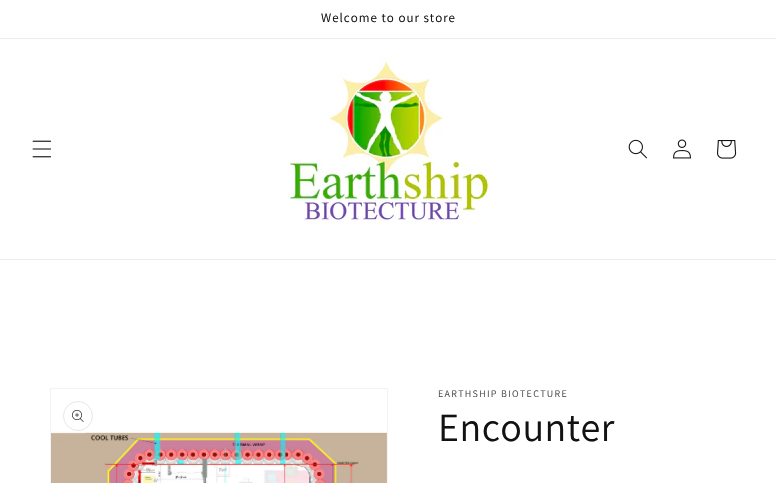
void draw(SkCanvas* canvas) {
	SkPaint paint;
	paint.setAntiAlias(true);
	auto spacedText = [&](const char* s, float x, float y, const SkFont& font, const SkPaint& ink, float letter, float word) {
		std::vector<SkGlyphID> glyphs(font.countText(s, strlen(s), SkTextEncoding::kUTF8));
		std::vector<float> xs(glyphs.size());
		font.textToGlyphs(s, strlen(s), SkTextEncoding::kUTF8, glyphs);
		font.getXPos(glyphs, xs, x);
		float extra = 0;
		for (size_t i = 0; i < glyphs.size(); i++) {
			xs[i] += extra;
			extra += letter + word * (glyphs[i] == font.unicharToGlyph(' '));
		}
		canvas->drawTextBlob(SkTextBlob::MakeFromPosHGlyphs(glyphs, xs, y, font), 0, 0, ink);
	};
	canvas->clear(0xffffffff);
	paint.setColor(0xffececec);
	canvas->drawRect(SkRect::MakeXYWH(0, 38, 776, 1), paint);
	SkFont f1(fontMgr->matchFamilyStyle("Assistant", SkFontStyle::Normal()), 13);
	f1.setSubpixel(true);
	paint.setColor(0xff121212);
	spacedText("Welcome to our store", 321, 22, f1, paint, 1, 0);
	paint.setColor(0xffececec);
	canvas->drawRect(SkRect::MakeXYWH(0, 259, 776, 1), paint);
	canvas->drawImageRect(SkImages::DeferredFromEncodedData(SkData::MakeFromFileName("img1.png")), SkRect::MakeXYWH(32, 140, 20, 18), SkSamplingOptions());
	canvas->drawImageRect(SkImages::DeferredFromEncodedData(SkData::MakeFromFileName("img2.png")), SkRect::MakeXYWH(290, 57, 200, 168), SkSamplingOptions());
	canvas->drawImageRect(SkImages::DeferredFromEncodedData(SkData::MakeFromFileName("img3.png")), SkRect::MakeXYWH(628, 139, 19, 20), SkSamplingOptions());
	canvas->drawImageRect(SkImages::DeferredFromEncodedData(SkData::MakeFromFileName("img4.png")), SkRect::MakeXYWH(673, 139, 18, 20), SkSamplingOptions());
	canvas->drawImageRect(SkImages::DeferredFromEncodedData(SkData::MakeFromFileName("img5.png")), SkRect::MakeXYWH(717, 140, 20, 19), SkSamplingOptions());
	paint.setStroke(true);
	paint.setStrokeWidth(1);
	paint.setColor(0xfff3f3f3);
	canvas->drawRect(SkRect::MakeXYWH(50.5, 388.5, 337, 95), paint);
	paint.setColor(0xffe7e7e7);
	canvas->drawCircle(78, 416, 14.5, paint);
	canvas->drawImageRect(SkImages::DeferredFromEncodedData(SkData::MakeFromFileName("img6.png")), SkRect::MakeXYWH(72, 410, 12, 12), SkSamplingOptions());
	canvas->drawImageRect(SkImages::DeferredFromEncodedData(SkData::MakeFromFileName("img7.png")), SkRect::MakeXYWH(51, 431, 336, 52), SkSamplingOptions());
	SkFont f2(fontMgr->matchFamilyStyle("Assistant", SkFontStyle::Normal()), 10);
	f2.setSubpixel(true);
	paint.setStroke(false);
	paint.setColor(0xff4d4d4d);
	spacedText("EARTHSHIP BIOTECTURE", 438, 397, f2, paint, 1.3, 0);
	SkFont f3(fontMgr->matchFamilyStyle("Assistant", SkFontStyle::Normal()), 40);
	f3.setSubpixel(true);
	paint.setColor(0xff121212);
	spacedText("Encounter", 438, 441, f3, paint, 0.5, 0);
}
